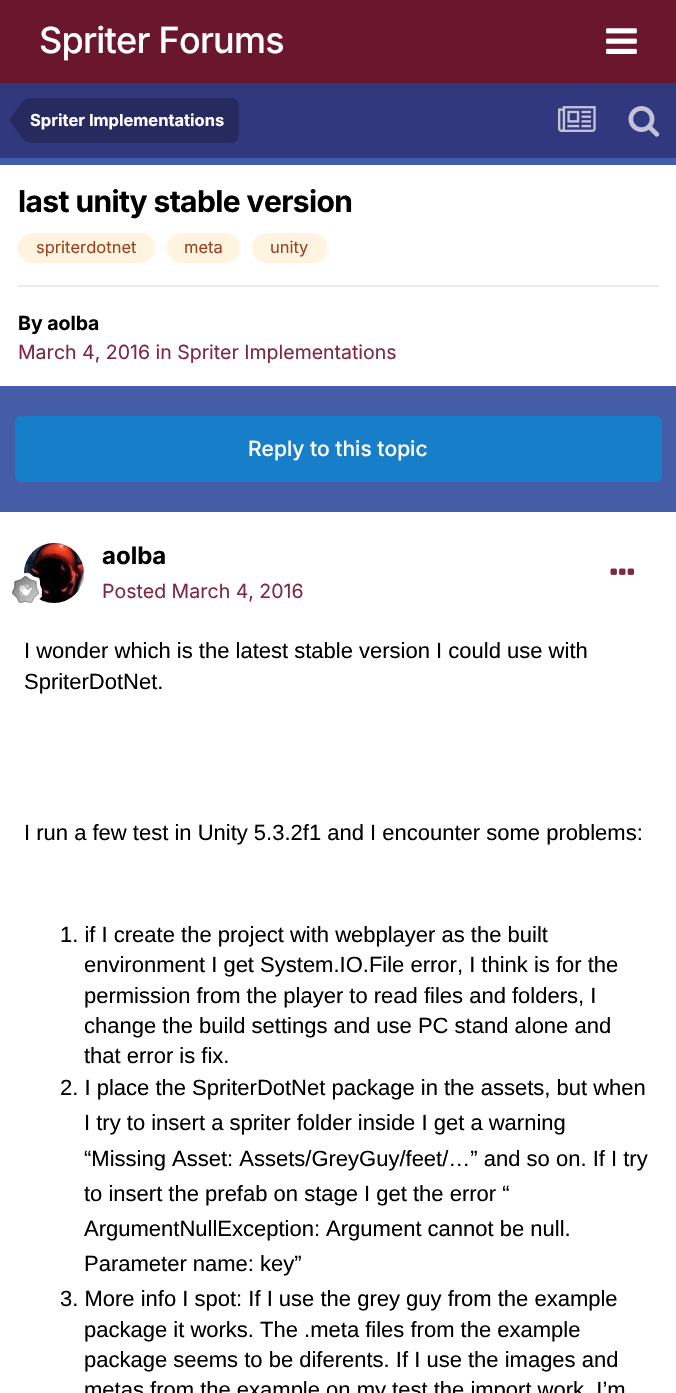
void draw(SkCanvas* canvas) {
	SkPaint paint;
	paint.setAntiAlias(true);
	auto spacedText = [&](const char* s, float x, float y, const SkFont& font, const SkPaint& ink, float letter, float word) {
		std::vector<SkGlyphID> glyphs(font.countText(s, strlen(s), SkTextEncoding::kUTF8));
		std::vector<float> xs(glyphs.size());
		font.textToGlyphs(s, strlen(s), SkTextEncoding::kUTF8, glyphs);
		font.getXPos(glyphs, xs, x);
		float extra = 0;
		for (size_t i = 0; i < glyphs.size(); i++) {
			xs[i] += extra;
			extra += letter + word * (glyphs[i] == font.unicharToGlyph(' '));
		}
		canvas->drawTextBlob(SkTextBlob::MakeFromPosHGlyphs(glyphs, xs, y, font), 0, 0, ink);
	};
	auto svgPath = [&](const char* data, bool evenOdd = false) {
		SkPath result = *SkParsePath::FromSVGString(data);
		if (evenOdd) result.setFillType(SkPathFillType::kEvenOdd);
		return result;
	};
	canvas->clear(0xff455da8);
	paint.setColor(0xff6a172d);
	canvas->drawRect(SkRect::MakeXYWH(0, 0, 676, 83), paint);
	SkFont f1(fontMgr->matchFamilyStyle("Inter", SkFontStyle(500, SkFontStyle::kNormal_Width, SkFontStyle::kUpright_Slant)), 36);
	f1.setSubpixel(true);
	paint.setColor(0xffffffff);
	spacedText("Spriter Forums", 39, 53, f1, paint, -0.75, 0);
	canvas->drawImageRect(SkImages::DeferredFromEncodedData(SkData::MakeFromFileName("img1.png")), SkRect::MakeXYWH(606, 28, 31, 26), SkSamplingOptions());
	paint.setColor(0xff32387e);
	canvas->drawRect(SkRect::MakeXYWH(0, 83, 676, 75), paint);
	paint.setColor(0xff262a5f);
	canvas->drawPath(svgPath("M30 98H231C235.5 98 239 101.5 239 106V135C239 139.5 235.5 143 231 143H30Z"), paint);
	canvas->drawPath(svgPath("M30 120V142C27 142 24.5 141 22 138L10.5 122L10 120ZM30 120H10L10.5 118L22 102C24.5 99 27 98 30 98Z"), paint);
	SkFont f2(fontMgr->matchFamilyStyle("Inter", SkFontStyle::Bold()), 16.5);
	f2.setSubpixel(true);
	paint.setColor(0xffffffff);
	canvas->drawString("Spriter Implementations", 30, 126, f2, paint);
	canvas->drawImageRect(SkImages::DeferredFromEncodedData(SkData::MakeFromFileName("img2.png")), SkRect::MakeXYWH(558, 106, 38, 26), SkSamplingOptions());
	canvas->drawImageRect(SkImages::DeferredFromEncodedData(SkData::MakeFromFileName("img3.png")), SkRect::MakeXYWH(628, 106, 32, 31), SkSamplingOptions());
	canvas->drawRect(SkRect::MakeXYWH(0, 165, 676, 221), paint);
	SkFont f3(fontMgr->matchFamilyStyle("Inter", SkFontStyle::Bold()), 30);
	f3.setSubpixel(true);
	paint.setColor(0xff000000);
	spacedText("last unity stable version", 18, 212, f3, paint, -0.6, 0);
	paint.setColor(0xfffff4df);
	canvas->drawRoundRect(SkRect::MakeXYWH(18, 233, 137, 30), 15, 15, paint);
	SkFont f4(fontMgr->matchFamilyStyle("Inter", SkFontStyle::Normal()), 16.5);
	f4.setSubpixel(true);
	paint.setColor(0xff9c4221);
	canvas->drawString("spriterdotnet", 36, 253, f4, paint);
	paint.setColor(0xfffff4df);
	canvas->drawRoundRect(SkRect::MakeXYWH(167, 233, 73, 30), 15, 15, paint);
	paint.setColor(0xff9c4221);
	canvas->drawString("meta", 184, 253, f4, paint);
	paint.setColor(0xfffff4df);
	canvas->drawRoundRect(SkRect::MakeXYWH(252, 233, 75, 30), 15, 15, paint);
	paint.setColor(0xff9c4221);
	canvas->drawString("unity", 270, 253, f4, paint);
	paint.setColor(0xffebebeb);
	canvas->drawRect(SkRect::MakeXYWH(18, 285, 641, 2), paint);
	SkFont f5(fontMgr->matchFamilyStyle("Inter", SkFontStyle::Bold()), 19.5);
	f5.setSubpixel(true);
	paint.setColor(0xff000000);
	canvas->drawString("By aolba", 18, 330, f5, paint);
	SkFont f6(fontMgr->matchFamilyStyle("Inter", SkFontStyle::Normal()), 19.5);
	f6.setSubpixel(true);
	paint.setColor(0xff7f2941);
	canvas->drawString("March 4, 2016 in Spriter Implementations", 18, 359, f6, paint);
	paint.setColor(0xff177ec9);
	canvas->drawRoundRect(SkRect::MakeXYWH(15, 416, 647, 66), 6, 6, paint);
	SkFont f7(fontMgr->matchFamilyStyle("Inter", SkFontStyle(500, SkFontStyle::kNormal_Width, SkFontStyle::kUpright_Slant)), 21);
	f7.setSubpixel(true);
	paint.setColor(0xffffffff);
	canvas->drawString("Reply to this topic", 248, 456, f7, paint);
	canvas->drawRect(SkRect::MakeXYWH(0, 512, 676, 881), paint);
	canvas->drawImageRect(SkImages::DeferredFromEncodedData(SkData::MakeFromFileName("img4.png")), SkRect::MakeXYWH(24, 543, 60, 60), SkSamplingOptions());
	canvas->drawImageRect(SkImages::DeferredFromEncodedData(SkData::MakeFromFileName("img5.png")), SkRect::MakeXYWH(12, 573, 30, 30), SkSamplingOptions());
	SkFont f8(fontMgr->matchFamilyStyle("Inter", SkFontStyle::Bold()), 24);
	f8.setSubpixel(true);
	paint.setColor(0xff000000);
	canvas->drawString("aolba", 102, 564, f8, paint);
	paint.setColor(0xff7f2941);
	canvas->drawString("Posted March 4, 2016", 102, 598, f6, paint);
	canvas->drawImageRect(SkImages::DeferredFromEncodedData(SkData::MakeFromFileName("img6.png")), SkRect::MakeXYWH(610, 568, 25, 7), SkSamplingOptions());
	SkFont f9(fontMgr->matchFamilyStyle("Liberation Sans", SkFontStyle::Normal()), 22);
	f9.setSubpixel(true);
	paint.setColor(0xff000000);
	canvas->drawString("I wonder which is the latest stable version I could use with", 24, 658, f9, paint);
	canvas->drawString("SpriterDotNet.", 24, 689, f9, paint);
	canvas->drawString("I run a few test in Unity 5.3.2f1 and I encounter some problems:", 24, 840, f9, paint);
	canvas->drawString("1. if I create the project with webplayer as the built", 60, 942, f9, paint);
	canvas->drawString("environment I get System.IO.File error, I think is for the", 84, 972, f9, paint);
	canvas->drawString("permission from the player to read files and folders, I", 84, 1003, f9, paint);
	canvas->drawString("change the build settings and use PC stand alone and", 84, 1033, f9, paint);
	canvas->drawString("that error is fix.", 84, 1063, f9, paint);
	canvas->drawString("2. I place the SpriterDotNet package in the assets, but when", 60, 1095, f9, paint);
	canvas->drawString("I try to insert a spriter folder inside I get a warning", 84, 1130, f9, paint);
	canvas->drawString("“Missing Asset: Assets/GreyGuy/feet/…” and so on. If I try", 84, 1166, f9, paint);
	canvas->drawString("to insert the prefab on stage I get the error “", 84, 1201, f9, paint);
	canvas->drawString("ArgumentNullException: Argument cannot be null.", 84, 1236, f9, paint);
	canvas->drawString("Parameter name: key”", 84, 1271, f9, paint);
	canvas->drawString("3. More info I spot: If I use the grey guy from the example", 60, 1306, f9, paint);
	canvas->drawString("package it works. The .meta files from the example", 84, 1337, f9, paint);
	canvas->drawString("package seems to be diferents. If I use the images and", 84, 1367, f9, paint);
	canvas->drawString("metas from the example on my test the import work. I’m", 84, 1397, f9, paint);
}
